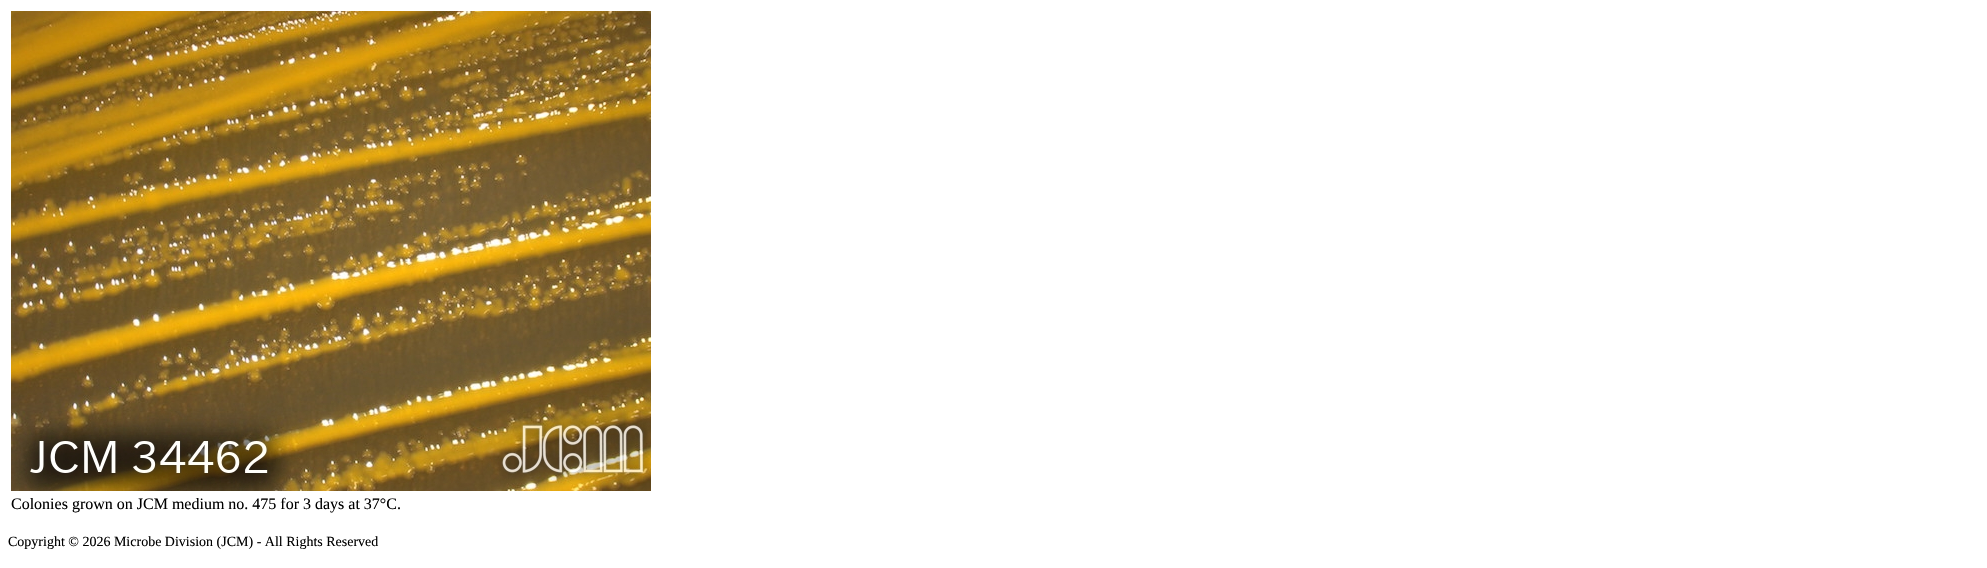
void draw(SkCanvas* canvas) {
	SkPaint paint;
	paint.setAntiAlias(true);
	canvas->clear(0xffffffff);
	canvas->drawImageRect(SkImages::DeferredFromEncodedData(SkData::MakeFromFileName("img1.png")), SkRect::MakeXYWH(11, 11, 640, 480), SkSamplingOptions());
	SkFont f1(fontMgr->matchFamilyStyle("Liberation Serif", SkFontStyle::Normal()), 16);
	f1.setSubpixel(true);
	paint.setColor(0xff000000);
	canvas->drawString("Colonies grown on JCM medium no. 475 for 3 days at 37°C.", 11, 509, f1, paint);
	SkFont f2(fontMgr->matchFamilyStyle("Liberation Serif", SkFontStyle::Normal()), 14);
	f2.setSubpixel(true);
	canvas->drawString("Copyright © 2026 Microbe Division (JCM) - All Rights Reserved", 8, 546, f2, paint);
}
